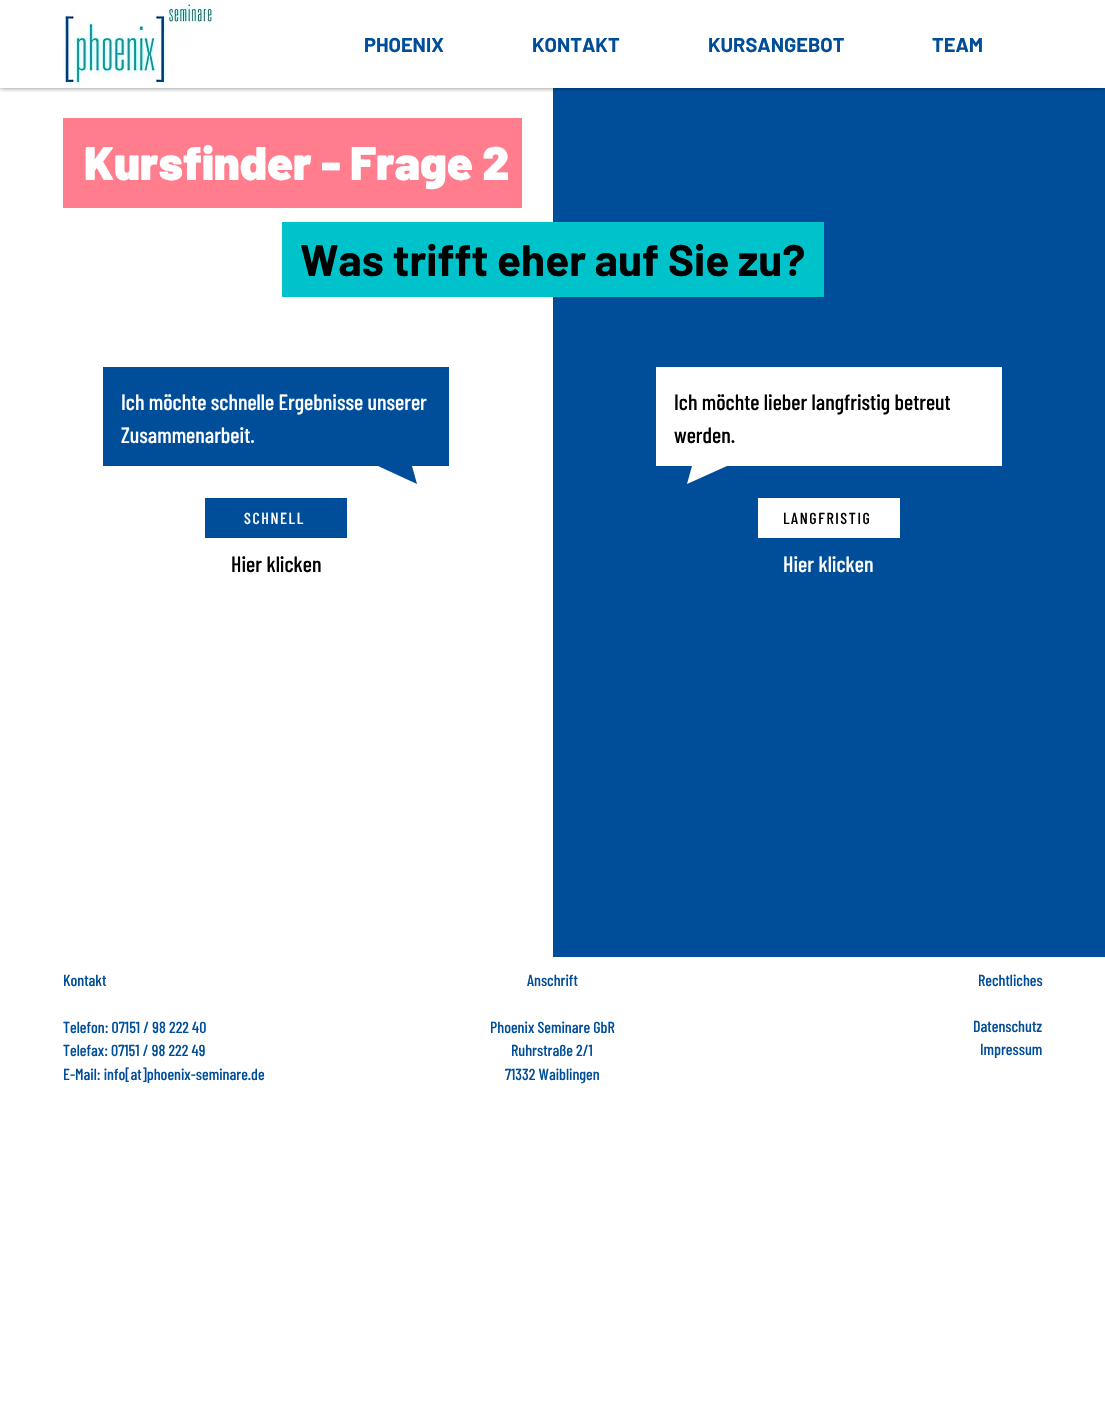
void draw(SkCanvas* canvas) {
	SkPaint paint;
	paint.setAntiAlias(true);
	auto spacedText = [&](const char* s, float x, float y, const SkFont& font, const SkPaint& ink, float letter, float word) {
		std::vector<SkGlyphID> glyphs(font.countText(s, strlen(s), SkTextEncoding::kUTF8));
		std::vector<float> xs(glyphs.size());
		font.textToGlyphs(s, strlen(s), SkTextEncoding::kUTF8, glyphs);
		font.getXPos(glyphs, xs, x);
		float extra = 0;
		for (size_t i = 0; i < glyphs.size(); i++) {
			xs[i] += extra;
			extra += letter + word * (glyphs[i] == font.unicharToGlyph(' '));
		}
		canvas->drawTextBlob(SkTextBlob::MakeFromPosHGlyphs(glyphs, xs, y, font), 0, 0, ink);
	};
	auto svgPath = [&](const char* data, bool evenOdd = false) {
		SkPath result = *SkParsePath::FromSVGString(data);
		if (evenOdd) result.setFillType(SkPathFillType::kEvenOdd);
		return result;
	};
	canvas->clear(0xffffffff);
	paint.setColor(0xff004e99);
	canvas->drawRect(SkRect::MakeXYWH(553, 88, 552, 869), paint);
	canvas->save();
	canvas->clipRect(SkRect::MakeXYWH(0, 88, 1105, 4));
	paint.setColor(0x80000000);
	paint.setMaskFilter(SkMaskFilter::MakeBlur(kNormal_SkBlurStyle, 2.5));
	canvas->drawRect(SkRect::MakeXYWH(0, 0, 1105, 88), paint);
	paint.setMaskFilter(nullptr);
	canvas->restore();
	canvas->drawImageRect(SkImages::DeferredFromEncodedData(SkData::MakeFromFileName("img1.png")), SkRect::MakeXYWH(63, 2, 151, 83), SkSamplingOptions());
	SkFont f1(fontMgr->matchFamilyStyle("Barlow", SkFontStyle::Bold()), 20);
	f1.setSubpixel(true);
	paint.setColor(0xff004e99);
	canvas->drawString("PHOENIX", 364, 52, f1, paint);
	canvas->drawString("KONTAKT", 532, 52, f1, paint);
	canvas->drawString("KURSANGEBOT", 708, 52, f1, paint);
	canvas->drawString("TEAM", 932, 52, f1, paint);
	paint.setColor(0xffff7d8c);
	canvas->drawRect(SkRect::MakeXYWH(63, 118, 459, 90), paint);
	SkFont f2(fontMgr->matchFamilyStyle("Barlow", SkFontStyle(900, SkFontStyle::kNormal_Width, SkFontStyle::kUpright_Slant)), 47);
	f2.setSubpixel(true);
	paint.setColor(0xffffffff);
	canvas->drawString("Kursfinder - Frage 2", 84, 180, f2, paint);
	paint.setColor(0xff00c2cb);
	canvas->drawRect(SkRect::MakeXYWH(282, 222, 542, 75), paint);
	SkFont f3(fontMgr->matchFamilyStyle("Barlow", SkFontStyle::Bold()), 44);
	f3.setSubpixel(true);
	paint.setColor(0xff000000);
	canvas->drawString("Was trifft eher auf Sie zu?", 300, 276, f3, paint);
	paint.setColor(0xff004e99);
	canvas->drawPath(svgPath("M449 367H103V466H378L417 484L412 466H449Z"), paint);
	SkFont f4(fontMgr->matchFamilyStyle("Barlow Condensed", SkFontStyle(500, SkFontStyle::kNormal_Width, SkFontStyle::kUpright_Slant)), 22);
	f4.setSubpixel(true);
	paint.setColor(0xffffffff);
	canvas->drawString("Ich möchte schnelle Ergebnisse unserer", 121, 410, f4, paint);
	canvas->drawString("Zusammenarbeit.", 121, 443, f4, paint);
	paint.setColor(0xff004e99);
	canvas->drawRect(SkRect::MakeXYWH(205, 498, 142, 40), paint);
	SkFont f5(fontMgr->matchFamilyStyle("Barlow Condensed", SkFontStyle(500, SkFontStyle::kNormal_Width, SkFontStyle::kUpright_Slant)), 16);
	f5.setSubpixel(true);
	paint.setColor(0xffffffff);
	spacedText("SCHNELL", 244, 524, f5, paint, 1.6, 0);
	paint.setColor(0xff000000);
	canvas->drawString("Hier klicken", 231, 572, f4, paint);
	paint.setColor(0xffffffff);
	canvas->drawPath(svgPath("M656 367H1002V466H727L687 484L692 466H656Z"), paint);
	paint.setColor(0xff000000);
	canvas->drawString("Ich möchte lieber langfristig betreut", 674, 410, f4, paint);
	canvas->drawString("werden.", 674, 443, f4, paint);
	paint.setColor(0xffffffff);
	canvas->drawRect(SkRect::MakeXYWH(758, 498, 142, 40), paint);
	paint.setColor(0xff000000);
	spacedText("LANGFRISTIG", 783, 524, f5, paint, 1.6, 0);
	paint.setColor(0xffffffff);
	canvas->drawString("Hier klicken", 783, 572, f4, paint);
	paint.setColor(0xff004e99);
	canvas->drawString("Kontakt", 63, 986, f5, paint);
	canvas->drawString("Telefon: 07151 / 98 222 40", 63, 1033, f5, paint);
	canvas->drawString("Telefax: 07151 / 98 222 49", 63, 1056, f5, paint);
	canvas->drawString("E-Mail: info[at]phoenix-seminare.de", 63, 1080, f5, paint);
	canvas->drawString("Anschrift", 527, 986, f5, paint);
	canvas->drawString("Phoenix Seminare GbR", 490, 1033, f5, paint);
	canvas->drawString("Ruhrstraße 2/1", 511, 1056, f5, paint);
	canvas->drawString("71332 Waiblingen", 505, 1080, f5, paint);
	canvas->drawString("Rechtliches", 978, 986, f5, paint);
	canvas->drawString("Datenschutz", 973, 1032, f5, paint);
	canvas->drawString("Impressum", 980, 1055, f5, paint);
}
